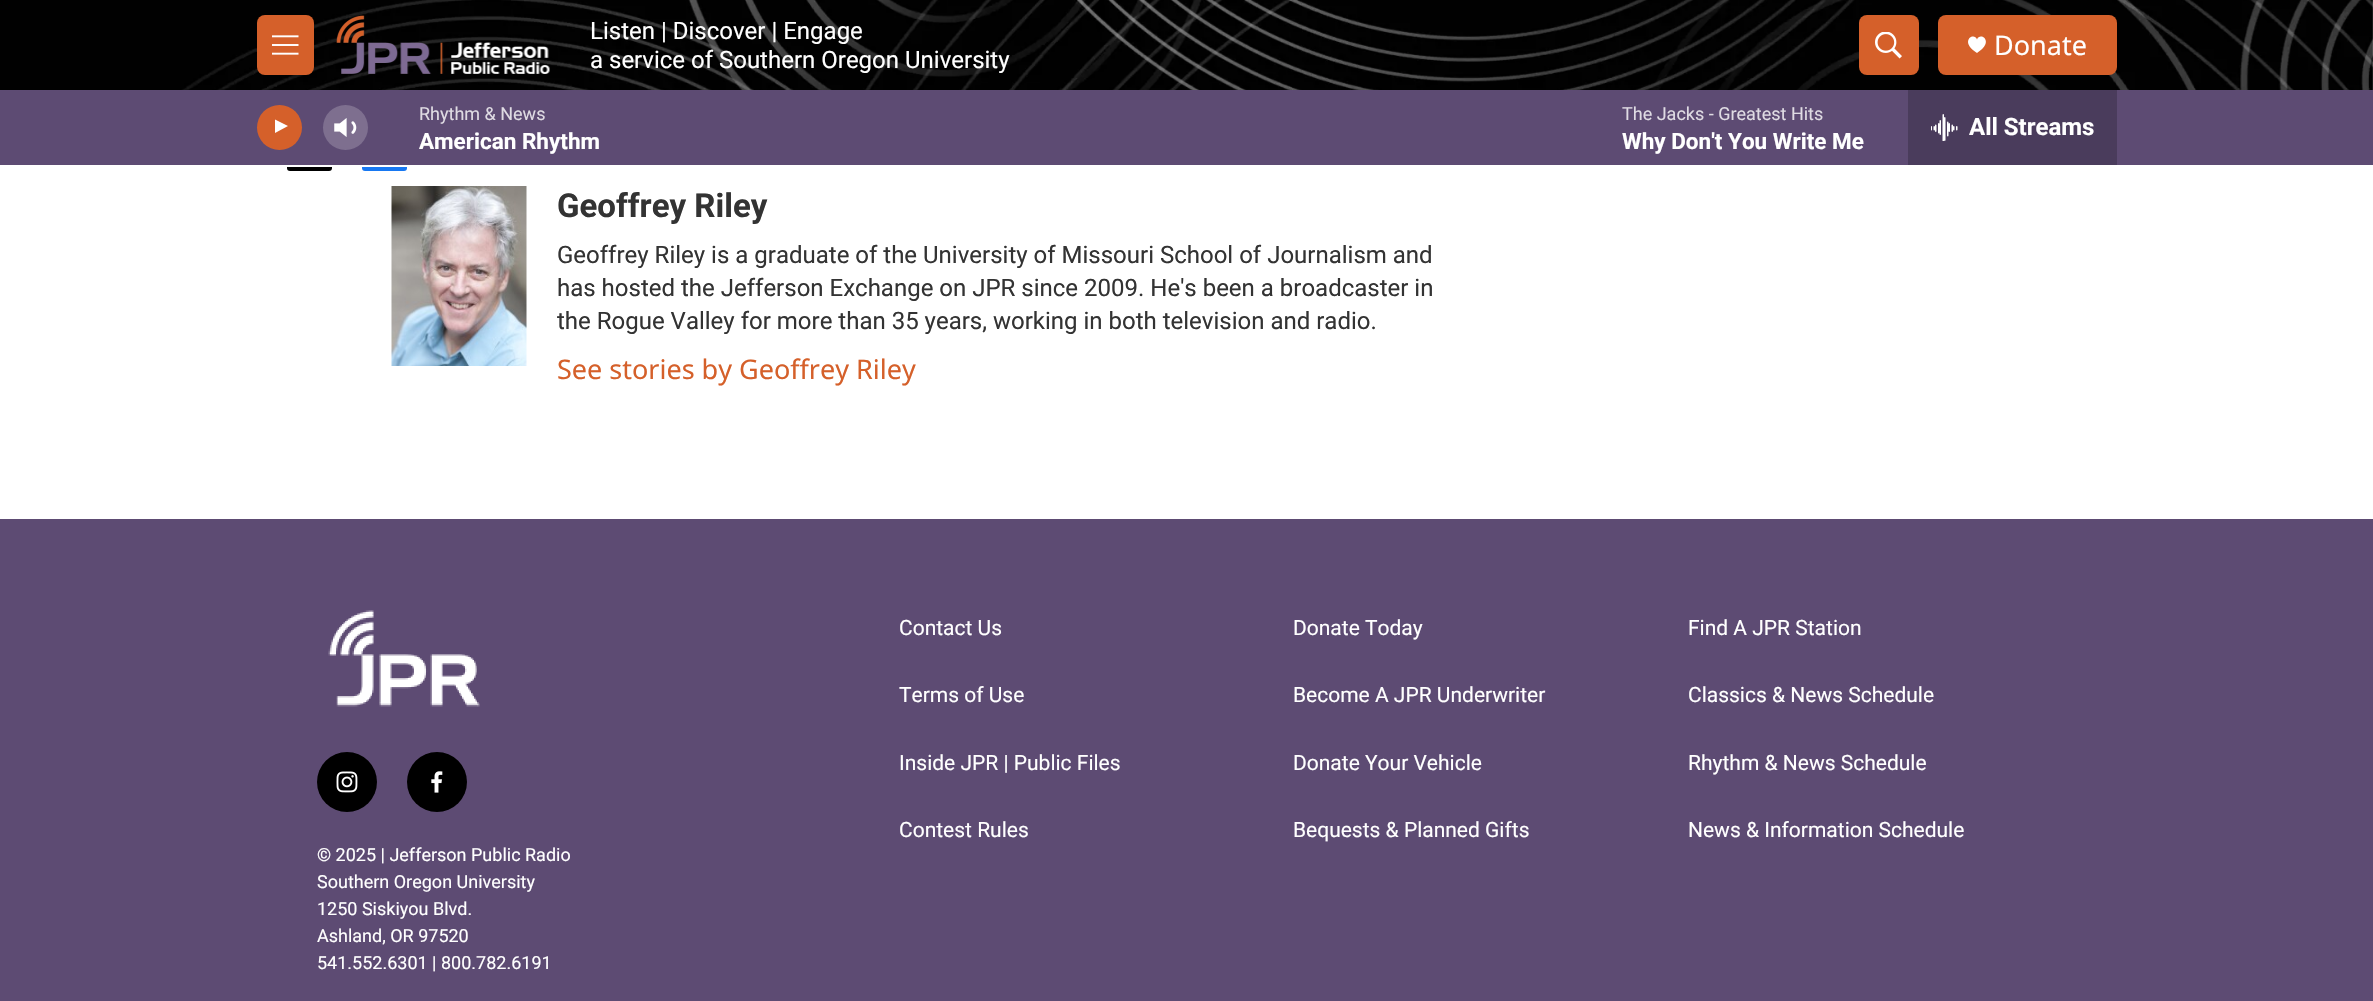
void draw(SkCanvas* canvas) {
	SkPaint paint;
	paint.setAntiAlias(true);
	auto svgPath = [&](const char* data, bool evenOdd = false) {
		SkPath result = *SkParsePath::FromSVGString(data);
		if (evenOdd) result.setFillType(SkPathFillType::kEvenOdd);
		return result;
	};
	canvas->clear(0xffffffff);
	paint.setColor(0xff000000);
	canvas->drawRoundRect(SkRect::MakeXYWH(287, 126, 45, 45), 3, 3, paint);
	paint.setColor(0xff1778f2);
	canvas->drawRoundRect(SkRect::MakeXYWH(362, 126, 45, 45), 3, 3, paint);
	paint.setColor(0xffffffff);
	canvas->drawRect(SkRect::MakeXYWH(287, 126, 120, 41), paint);
	canvas->drawImageRect(SkImages::DeferredFromEncodedData(SkData::MakeFromFileName("img1.png")), SkRect::MakeXYWH(0, 0, 2373, 90), SkSamplingOptions());
	paint.setColor(0xffd5602a);
	canvas->drawRoundRect(SkRect::MakeXYWH(257, 15, 57, 60), 8, 8, paint);
	canvas->drawImageRect(SkImages::DeferredFromEncodedData(SkData::MakeFromFileName("img2.png")), SkRect::MakeXYWH(272, 35, 27, 20), SkSamplingOptions());
	canvas->drawImageRect(SkImages::DeferredFromEncodedData(SkData::MakeFromFileName("img3.png")), SkRect::MakeXYWH(336, 15, 214, 59), SkSamplingOptions());
	SkFont f1(fontMgr->matchFamilyStyle("Roboto", SkFontStyle::Normal()), 24);
	f1.setSubpixel(true);
	paint.setColor(0xffffffff);
	canvas->drawString("Listen | Discover | Engage", 590, 39, f1, paint);
	canvas->drawString("a service of Southern Oregon University", 590, 68, f1, paint);
	paint.setColor(0xffd5602a);
	canvas->drawRoundRect(SkRect::MakeXYWH(1859, 15, 60, 60), 8, 8, paint);
	canvas->drawImageRect(SkImages::DeferredFromEncodedData(SkData::MakeFromFileName("img4.png")), SkRect::MakeXYWH(1875, 32, 27, 27), SkSamplingOptions());
	canvas->drawRoundRect(SkRect::MakeXYWH(1938, 15, 179, 60), 8, 8, paint);
	paint.setColor(0xffffffff);
	canvas->drawPath(svgPath("M1977 39.5C1974 31.5 1958.5 41.5 1977 53C1995.5 41.5 1980 31.5 1977 39.5Z"), paint);
	SkFont f2(fontMgr->matchFamilyStyle("Noto Sans", SkFontStyle::Normal()), 27);
	f2.setSubpixel(true);
	canvas->drawString("Donate", 1994, 55, f2, paint);
	paint.setColor(0xff5d4b73);
	canvas->drawRect(SkRect::MakeXYWH(0, 90, 2373, 75), paint);
	paint.setColor(0xffd5602a);
	canvas->drawCircle(279.5, 127.5, 22.5, paint);
	canvas->save();
	canvas->clipRect(SkRect::MakeXYWH(275, 117, 17, 23));
	paint.setColor(0xffffffff);
	canvas->drawPath(svgPath("M274 119L288 126L274 133.5Z"), paint);
	canvas->restore();
	canvas->drawImageRect(SkImages::DeferredFromEncodedData(SkData::MakeFromFileName("img5.png")), SkRect::MakeXYWH(334, 118, 23, 19), SkSamplingOptions());
	paint.setColor(0x33ffffff);
	canvas->drawCircle(345.5, 127.5, 22.5, paint);
	SkFont f3(fontMgr->matchFamilyStyle("Roboto", SkFontStyle::Normal()), 18);
	f3.setSubpixel(true);
	paint.setColor(0xffdfdbe3);
	canvas->drawString("Rhythm & News", 419, 120, f3, paint);
	SkFont f4(fontMgr->matchFamilyStyle("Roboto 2", SkFontStyle::Bold()), 22.5);
	f4.setSubpixel(true);
	paint.setColor(0xffffffff);
	canvas->drawString("American Rhythm", 419, 149, f4, paint);
	paint.setColor(0xffdfdbe3);
	canvas->drawString("The Jacks - Greatest Hits", 1622, 120, f3, paint);
	paint.setColor(0xffffffff);
	canvas->drawString("Why Don't You Write Me", 1622, 149, f4, paint);
	paint.setColor(0xff4a3c5c);
	canvas->drawRect(SkRect::MakeXYWH(1908, 90, 209, 75), paint);
	canvas->drawImageRect(SkImages::DeferredFromEncodedData(SkData::MakeFromFileName("img6.png")), SkRect::MakeXYWH(1931, 114, 27, 27), SkSamplingOptions());
	SkFont f5(fontMgr->matchFamilyStyle("Roboto 2", SkFontStyle::Bold()), 24);
	f5.setSubpixel(true);
	paint.setColor(0xffffffff);
	canvas->drawString("All Streams", 1969, 135, f5, paint);
	canvas->drawImageRect(SkImages::DeferredFromEncodedData(SkData::MakeFromFileName("img7.png")), SkRect::MakeXYWH(391, 186, 136, 180), SkSamplingOptions());
	SkFont f6(fontMgr->matchFamilyStyle("Roboto", SkFontStyle::Bold()), 33);
	f6.setSubpixel(true);
	paint.setColor(0xff333333);
	canvas->drawString("Geoffrey Riley", 557, 217, f6, paint);
	canvas->drawString("Geoffrey Riley is a graduate of the University of Missouri School of Journalism and", 557, 263, f1, paint);
	canvas->drawString("has hosted the Jefferson Exchange on JPR since 2009. He's been a broadcaster in", 557, 296, f1, paint);
	canvas->drawString("the Rogue Valley for more than 35 years, working in both television and radio.", 557, 329, f1, paint);
	paint.setColor(0xffd5602a);
	canvas->drawString("See stories by Geoffrey Riley", 557, 379, f2, paint);
	paint.setColor(0xff5d4b73);
	canvas->drawRect(SkRect::MakeXYWH(0, 519, 2373, 482), paint);
	SkFont f7(fontMgr->matchFamilyStyle("Roboto", SkFontStyle::Normal()), 21);
	f7.setSubpixel(true);
	paint.setColor(0xffffffff);
	canvas->drawString("Contact Us", 899, 635, f7, paint);
	canvas->drawString("Donate Today", 1293, 635, f7, paint);
	canvas->drawString("Find A JPR Station", 1688, 635, f7, paint);
	canvas->drawString("Terms of Use", 899, 702, f7, paint);
	canvas->drawString("Become A JPR Underwriter", 1293, 702, f7, paint);
	canvas->drawString("Classics & News Schedule", 1688, 702, f7, paint);
	canvas->drawString("Inside JPR | Public Files", 899, 770, f7, paint);
	canvas->drawString("Donate Your Vehicle", 1293, 770, f7, paint);
	canvas->drawString("Rhythm & News Schedule", 1688, 770, f7, paint);
	canvas->drawString("Contest Rules", 899, 837, f7, paint);
	canvas->drawString("Bequests & Planned Gifts", 1293, 837, f7, paint);
	canvas->drawString("News & Information Schedule", 1688, 837, f7, paint);
	canvas->drawImageRect(SkImages::DeferredFromEncodedData(SkData::MakeFromFileName("img8.png")), SkRect::MakeXYWH(328, 610, 152, 97), SkSamplingOptions());
	paint.setColor(0xff000000);
	canvas->drawCircle(347, 782, 30, paint);
	canvas->drawImageRect(SkImages::DeferredFromEncodedData(SkData::MakeFromFileName("img9.png")), SkRect::MakeXYWH(336, 771, 22, 22), SkSamplingOptions());
	canvas->drawCircle(437, 782, 30, paint);
	canvas->drawImageRect(SkImages::DeferredFromEncodedData(SkData::MakeFromFileName("img10.png")), SkRect::MakeXYWH(431, 771, 12, 22), SkSamplingOptions());
	paint.setColor(0xffffffff);
	canvas->drawString("© 2025 | Jefferson Public Radio", 317, 861, f3, paint);
	canvas->drawString("Southern Oregon University", 317, 888, f3, paint);
	canvas->drawString("1250 Siskiyou Blvd.", 317, 915, f3, paint);
	canvas->drawString("Ashland, OR 97520", 317, 942, f3, paint);
	canvas->drawString("541.552.6301 | 800.782.6191", 317, 969, f3, paint);
}
